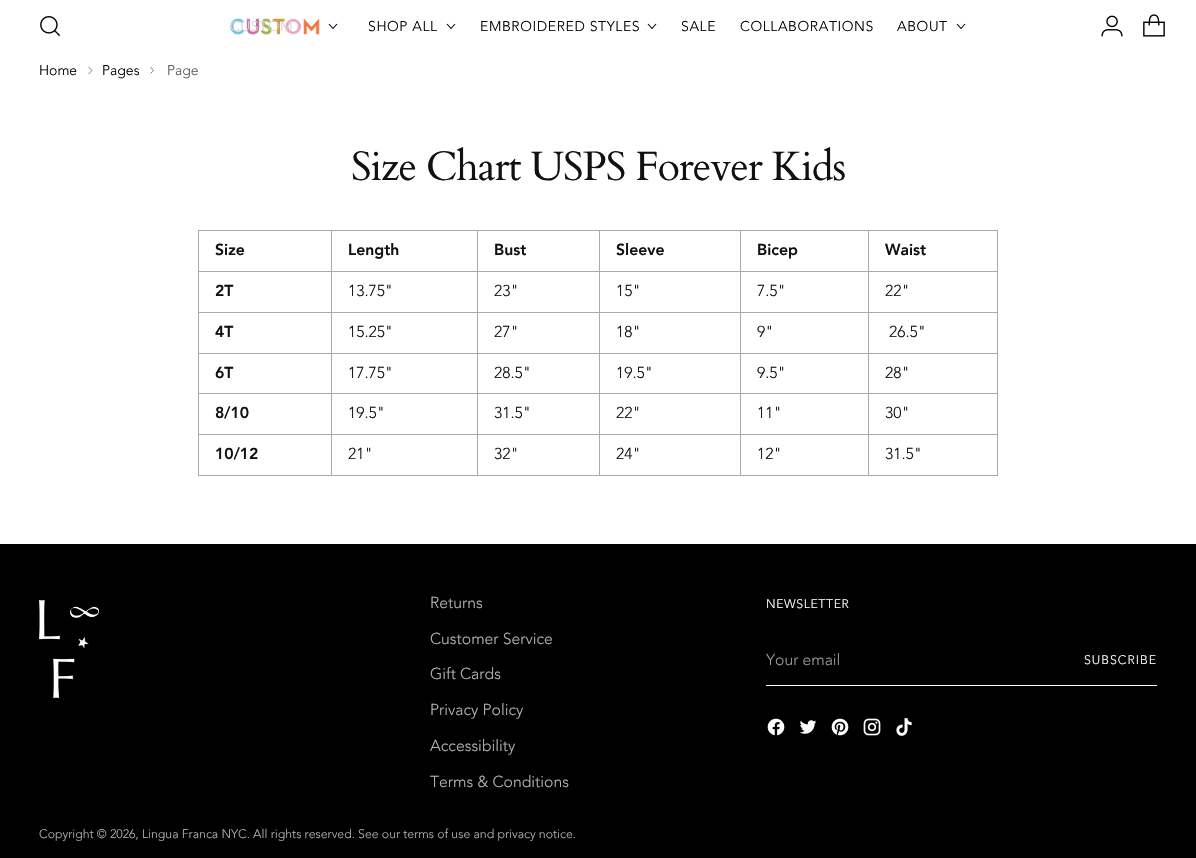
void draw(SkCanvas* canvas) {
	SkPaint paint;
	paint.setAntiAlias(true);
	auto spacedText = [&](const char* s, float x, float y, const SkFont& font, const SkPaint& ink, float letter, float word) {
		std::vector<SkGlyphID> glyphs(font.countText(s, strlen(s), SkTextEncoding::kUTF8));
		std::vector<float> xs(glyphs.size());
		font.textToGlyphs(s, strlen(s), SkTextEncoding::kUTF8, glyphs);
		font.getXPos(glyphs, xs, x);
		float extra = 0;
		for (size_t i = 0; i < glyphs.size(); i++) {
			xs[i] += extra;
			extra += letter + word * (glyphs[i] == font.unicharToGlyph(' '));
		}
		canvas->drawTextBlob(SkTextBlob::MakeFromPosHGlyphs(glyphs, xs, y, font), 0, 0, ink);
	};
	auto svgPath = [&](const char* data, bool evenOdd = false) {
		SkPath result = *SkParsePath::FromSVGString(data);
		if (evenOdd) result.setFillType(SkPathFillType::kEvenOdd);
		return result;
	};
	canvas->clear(0xffffffff);
	canvas->drawImageRect(SkImages::DeferredFromEncodedData(SkData::MakeFromFileName("img1.png")), SkRect::MakeXYWH(40, 16, 21, 21), SkSamplingOptions());
	canvas->drawImageRect(SkImages::DeferredFromEncodedData(SkData::MakeFromFileName("img2.png")), SkRect::MakeXYWH(230, 18, 90, 17), SkSamplingOptions());
	SkFont f1(fontMgr->matchFamilyStyle("Avenir", SkFontStyle(300, SkFontStyle::kNormal_Width, SkFontStyle::kUpright_Slant)), 14);
	f1.setSubpixel(true);
	paint.setColor(0xffd9d5d2);
	spacedText("CUSTOM", 230, 31, f1, paint, 0.6, 0);
	paint.setStroke(true);
	paint.setStrokeWidth(1.1);
	paint.setColor(0xff000000);
	canvas->drawPath(svgPath("M329 24L333 28.5L337 24"), paint);
	paint.setStroke(false);
	spacedText("SHOP ALL", 368, 31, f1, paint, 0.6, 0);
	paint.setStroke(true);
	canvas->drawPath(svgPath("M447 24L451 28.5L455 24"), paint);
	paint.setStroke(false);
	spacedText("EMBROIDERED STYLES", 480, 31, f1, paint, 0.6, 0);
	paint.setStroke(true);
	canvas->drawPath(svgPath("M648 24L652 28.5L656 24"), paint);
	paint.setStroke(false);
	spacedText("SALE", 681, 31, f1, paint, 0.6, 0);
	spacedText("COLLABORATIONS", 740, 31, f1, paint, 0.6, 0);
	spacedText("ABOUT", 897, 31, f1, paint, 0.6, 0);
	paint.setStroke(true);
	canvas->drawPath(svgPath("M957 24L961 28.5L965 24"), paint);
	canvas->drawImageRect(SkImages::DeferredFromEncodedData(SkData::MakeFromFileName("img3.png")), SkRect::MakeXYWH(1101, 15, 22, 22), SkSamplingOptions());
	canvas->drawImageRect(SkImages::DeferredFromEncodedData(SkData::MakeFromFileName("img4.png")), SkRect::MakeXYWH(1143, 14, 22, 23), SkSamplingOptions());
	paint.setStroke(false);
	canvas->drawString("Home", 39, 75, f1, paint);
	paint.setStroke(true);
	paint.setStrokeWidth(0.9);
	paint.setColor(0xff707070);
	canvas->drawPath(svgPath("M88.5 74L92 70.5L88.5 67"), paint);
	paint.setStroke(false);
	paint.setColor(0xff000000);
	canvas->drawString("Pages", 102, 75, f1, paint);
	paint.setStroke(true);
	paint.setColor(0xff707070);
	canvas->drawPath(svgPath("M150.5 73.5L153.5 70.5L150.5 67"), paint);
	paint.setStroke(false);
	paint.setColor(0xff585858);
	canvas->drawString("Page", 167, 75, f1, paint);
	SkFont f2(fontMgr->matchFamilyStyle("Cardo", SkFontStyle::Normal()), 41);
	f2.setSubpixel(true);
	paint.setColor(0xff111111);
	spacedText("Size Chart USPS Forever Kids", 351, 180, f2, paint, -1, 0);
	paint.setColor(0xffaaaaaa);
	canvas->drawRect(SkRect::MakeXYWH(868, 230, 130, 1), paint);
	canvas->drawRect(SkRect::MakeXYWH(868, 271, 130, 1), paint);
	canvas->drawRect(SkRect::MakeXYWH(868, 312, 130, 1), paint);
	canvas->drawRect(SkRect::MakeXYWH(868, 353, 130, 1), paint);
	canvas->drawRect(SkRect::MakeXYWH(868, 393, 130, 1), paint);
	canvas->drawRect(SkRect::MakeXYWH(868, 434, 130, 1), paint);
	canvas->drawRect(SkRect::MakeXYWH(997, 434, 1, 42), paint);
	canvas->drawRect(SkRect::MakeXYWH(868, 475, 130, 1), paint);
	canvas->drawRect(SkRect::MakeXYWH(868, 434, 1, 42), paint);
	canvas->drawRect(SkRect::MakeXYWH(740, 434, 129, 1), paint);
	canvas->drawRect(SkRect::MakeXYWH(868, 393, 1, 42), paint);
	canvas->drawRect(SkRect::MakeXYWH(740, 393, 129, 1), paint);
	canvas->drawRect(SkRect::MakeXYWH(868, 353, 1, 41), paint);
	canvas->drawRect(SkRect::MakeXYWH(740, 353, 129, 1), paint);
	canvas->drawRect(SkRect::MakeXYWH(868, 312, 1, 42), paint);
	canvas->drawRect(SkRect::MakeXYWH(740, 312, 129, 1), paint);
	canvas->drawRect(SkRect::MakeXYWH(868, 271, 1, 42), paint);
	canvas->drawRect(SkRect::MakeXYWH(740, 271, 129, 1), paint);
	canvas->drawRect(SkRect::MakeXYWH(868, 230, 1, 42), paint);
	canvas->drawRect(SkRect::MakeXYWH(740, 230, 129, 1), paint);
	canvas->drawRect(SkRect::MakeXYWH(740, 475, 129, 1), paint);
	canvas->drawRect(SkRect::MakeXYWH(740, 434, 1, 42), paint);
	canvas->drawRect(SkRect::MakeXYWH(599, 434, 142, 1), paint);
	canvas->drawRect(SkRect::MakeXYWH(740, 393, 1, 42), paint);
	canvas->drawRect(SkRect::MakeXYWH(599, 393, 142, 1), paint);
	canvas->drawRect(SkRect::MakeXYWH(740, 353, 1, 41), paint);
	canvas->drawRect(SkRect::MakeXYWH(599, 353, 142, 1), paint);
	canvas->drawRect(SkRect::MakeXYWH(740, 312, 1, 42), paint);
	canvas->drawRect(SkRect::MakeXYWH(599, 312, 142, 1), paint);
	canvas->drawRect(SkRect::MakeXYWH(740, 271, 1, 42), paint);
	canvas->drawRect(SkRect::MakeXYWH(599, 271, 142, 1), paint);
	canvas->drawRect(SkRect::MakeXYWH(740, 230, 1, 42), paint);
	canvas->drawRect(SkRect::MakeXYWH(599, 230, 142, 1), paint);
	canvas->drawRect(SkRect::MakeXYWH(599, 475, 142, 1), paint);
	canvas->drawRect(SkRect::MakeXYWH(599, 434, 1, 42), paint);
	canvas->drawRect(SkRect::MakeXYWH(477, 434, 123, 1), paint);
	canvas->drawRect(SkRect::MakeXYWH(599, 393, 1, 42), paint);
	canvas->drawRect(SkRect::MakeXYWH(477, 393, 123, 1), paint);
	canvas->drawRect(SkRect::MakeXYWH(599, 353, 1, 41), paint);
	canvas->drawRect(SkRect::MakeXYWH(477, 353, 123, 1), paint);
	canvas->drawRect(SkRect::MakeXYWH(599, 312, 1, 42), paint);
	canvas->drawRect(SkRect::MakeXYWH(477, 312, 123, 1), paint);
	canvas->drawRect(SkRect::MakeXYWH(599, 271, 1, 42), paint);
	canvas->drawRect(SkRect::MakeXYWH(477, 271, 123, 1), paint);
	canvas->drawRect(SkRect::MakeXYWH(599, 230, 1, 42), paint);
	canvas->drawRect(SkRect::MakeXYWH(477, 230, 123, 1), paint);
	canvas->drawRect(SkRect::MakeXYWH(477, 475, 123, 1), paint);
	canvas->drawRect(SkRect::MakeXYWH(477, 434, 1, 42), paint);
	canvas->drawRect(SkRect::MakeXYWH(331, 434, 147, 1), paint);
	canvas->drawRect(SkRect::MakeXYWH(477, 393, 1, 42), paint);
	canvas->drawRect(SkRect::MakeXYWH(331, 393, 147, 1), paint);
	canvas->drawRect(SkRect::MakeXYWH(477, 353, 1, 41), paint);
	canvas->drawRect(SkRect::MakeXYWH(331, 353, 147, 1), paint);
	canvas->drawRect(SkRect::MakeXYWH(477, 312, 1, 42), paint);
	canvas->drawRect(SkRect::MakeXYWH(331, 312, 147, 1), paint);
	canvas->drawRect(SkRect::MakeXYWH(477, 271, 1, 42), paint);
	canvas->drawRect(SkRect::MakeXYWH(331, 271, 147, 1), paint);
	canvas->drawRect(SkRect::MakeXYWH(477, 230, 1, 42), paint);
	canvas->drawRect(SkRect::MakeXYWH(331, 230, 147, 1), paint);
	canvas->drawRect(SkRect::MakeXYWH(331, 475, 147, 1), paint);
	canvas->drawRect(SkRect::MakeXYWH(331, 434, 1, 42), paint);
	canvas->drawRect(SkRect::MakeXYWH(198, 434, 134, 1), paint);
	canvas->drawRect(SkRect::MakeXYWH(331, 393, 1, 42), paint);
	canvas->drawRect(SkRect::MakeXYWH(198, 393, 134, 1), paint);
	canvas->drawRect(SkRect::MakeXYWH(331, 353, 1, 41), paint);
	canvas->drawRect(SkRect::MakeXYWH(198, 353, 134, 1), paint);
	canvas->drawRect(SkRect::MakeXYWH(331, 312, 1, 42), paint);
	canvas->drawRect(SkRect::MakeXYWH(198, 312, 134, 1), paint);
	canvas->drawRect(SkRect::MakeXYWH(331, 271, 1, 42), paint);
	canvas->drawRect(SkRect::MakeXYWH(198, 271, 134, 1), paint);
	canvas->drawRect(SkRect::MakeXYWH(331, 230, 1, 42), paint);
	canvas->drawRect(SkRect::MakeXYWH(198, 230, 134, 1), paint);
	canvas->drawRect(SkRect::MakeXYWH(198, 475, 134, 1), paint);
	canvas->drawRect(SkRect::MakeXYWH(198, 434, 1, 42), paint);
	canvas->drawRect(SkRect::MakeXYWH(198, 393, 1, 42), paint);
	canvas->drawRect(SkRect::MakeXYWH(198, 353, 1, 41), paint);
	canvas->drawRect(SkRect::MakeXYWH(198, 312, 1, 42), paint);
	canvas->drawRect(SkRect::MakeXYWH(198, 271, 1, 42), paint);
	canvas->drawRect(SkRect::MakeXYWH(198, 230, 1, 42), paint);
	SkFont f3(fontMgr->matchFamilyStyle("Avenir", SkFontStyle(900, SkFontStyle::kNormal_Width, SkFontStyle::kUpright_Slant)), 15.75);
	f3.setSubpixel(true);
	paint.setColor(0xff111111);
	canvas->drawString("Size", 215, 255, f3, paint);
	canvas->drawString("Length", 348, 255, f3, paint);
	canvas->drawString("Bust", 494, 255, f3, paint);
	canvas->drawString("Sleeve", 616, 255, f3, paint);
	canvas->drawString("Bicep", 757, 255, f3, paint);
	paint.setColor(0xffaaaaaa);
	canvas->drawRect(SkRect::MakeXYWH(997, 393, 1, 42), paint);
	canvas->drawRect(SkRect::MakeXYWH(997, 353, 1, 41), paint);
	canvas->drawRect(SkRect::MakeXYWH(997, 312, 1, 42), paint);
	canvas->drawRect(SkRect::MakeXYWH(997, 271, 1, 42), paint);
	canvas->drawRect(SkRect::MakeXYWH(997, 230, 1, 42), paint);
	paint.setColor(0xff111111);
	canvas->drawString("Waist", 885, 255, f3, paint);
	canvas->drawString("2T", 215, 296, f3, paint);
	SkFont f4(fontMgr->matchFamilyStyle("Avenir", SkFontStyle(300, SkFontStyle::kNormal_Width, SkFontStyle::kUpright_Slant)), 15.75);
	f4.setSubpixel(true);
	canvas->drawString("13.75\"", 348, 296, f4, paint);
	canvas->drawString("23\"", 494, 296, f4, paint);
	canvas->drawString("15\"", 616, 296, f4, paint);
	canvas->drawString("7.5\"", 757, 296, f4, paint);
	canvas->drawString("22\"", 885, 296, f4, paint);
	canvas->drawString("4T", 215, 337, f3, paint);
	canvas->drawString("15.25\"", 348, 337, f4, paint);
	canvas->drawString("27\"", 494, 337, f4, paint);
	canvas->drawString("18\"", 616, 337, f4, paint);
	canvas->drawString("9\"", 757, 337, f4, paint);
	canvas->drawString("26.5\"", 889, 337, f4, paint);
	canvas->drawString("6T", 215, 378, f3, paint);
	canvas->drawString("17.75\"", 348, 378, f4, paint);
	canvas->drawString("28.5\"", 494, 378, f4, paint);
	canvas->drawString("19.5\"", 616, 378, f4, paint);
	canvas->drawString("9.5\"", 757, 378, f4, paint);
	canvas->drawString("28\"", 885, 378, f4, paint);
	canvas->drawString("8/10", 215, 418, f3, paint);
	canvas->drawString("19.5\"", 348, 418, f4, paint);
	canvas->drawString("31.5\"", 494, 418, f4, paint);
	canvas->drawString("22\"", 616, 418, f4, paint);
	canvas->drawString("11\"", 757, 418, f4, paint);
	canvas->drawString("30\"", 885, 418, f4, paint);
	canvas->drawString("10/12", 215, 459, f3, paint);
	canvas->drawString("21\"", 348, 459, f4, paint);
	canvas->drawString("32\"", 494, 459, f4, paint);
	canvas->drawString("24\"", 616, 459, f4, paint);
	canvas->drawString("12\"", 757, 459, f4, paint);
	canvas->drawString("31.5\"", 885, 459, f4, paint);
	paint.setColor(0xff000000);
	canvas->drawRect(SkRect::MakeXYWH(0, 544, 1196, 314), paint);
	canvas->drawImageRect(SkImages::DeferredFromEncodedData(SkData::MakeFromFileName("img5.png")), SkRect::MakeXYWH(39, 600, 60, 98), SkSamplingOptions());
	paint.setColor(0xffb3b3b3);
	canvas->drawString("Returns", 430, 608, f4, paint);
	canvas->drawString("Customer Service", 430, 644, f4, paint);
	canvas->drawString("Gift Cards", 430, 679, f4, paint);
	canvas->drawString("Privacy Policy", 430, 715, f4, paint);
	canvas->drawString("Accessibility", 430, 751, f4, paint);
	canvas->drawString("Terms & Conditions", 430, 787, f4, paint);
	SkFont f5(fontMgr->matchFamilyStyle("Avenir", SkFontStyle(300, SkFontStyle::kNormal_Width, SkFontStyle::kUpright_Slant)), 12.3);
	f5.setSubpixel(true);
	paint.setColor(0xffffffff);
	spacedText("NEWSLETTER", 766, 608, f5, paint, 0.6, 0);
	canvas->drawRect(SkRect::MakeXYWH(766, 685, 391, 1), paint);
	paint.setColor(0xff999999);
	canvas->drawString("Your email", 766, 665, f4, paint);
	paint.setColor(0xffffffff);
	spacedText("SUBSCRIBE", 1084, 664, f5, paint, 1, 0);
	canvas->drawImageRect(SkImages::DeferredFromEncodedData(SkData::MakeFromFileName("img6.png")), SkRect::MakeXYWH(767, 718, 18, 18), SkSamplingOptions());
	canvas->drawImageRect(SkImages::DeferredFromEncodedData(SkData::MakeFromFileName("img7.png")), SkRect::MakeXYWH(800, 720, 17, 14), SkSamplingOptions());
	canvas->drawImageRect(SkImages::DeferredFromEncodedData(SkData::MakeFromFileName("img8.png")), SkRect::MakeXYWH(831, 718, 18, 18), SkSamplingOptions());
	canvas->drawImageRect(SkImages::DeferredFromEncodedData(SkData::MakeFromFileName("img9.png")), SkRect::MakeXYWH(863, 718, 18, 18), SkSamplingOptions());
	canvas->drawImageRect(SkImages::DeferredFromEncodedData(SkData::MakeFromFileName("img10.png")), SkRect::MakeXYWH(896, 718, 16, 18), SkSamplingOptions());
	paint.setColor(0xffb3b3b3);
	canvas->drawString("Copyright © 2026, Lingua Franca NYC. All rights reserved. See our terms of use and privacy notice.", 39, 838, f5, paint);
}
